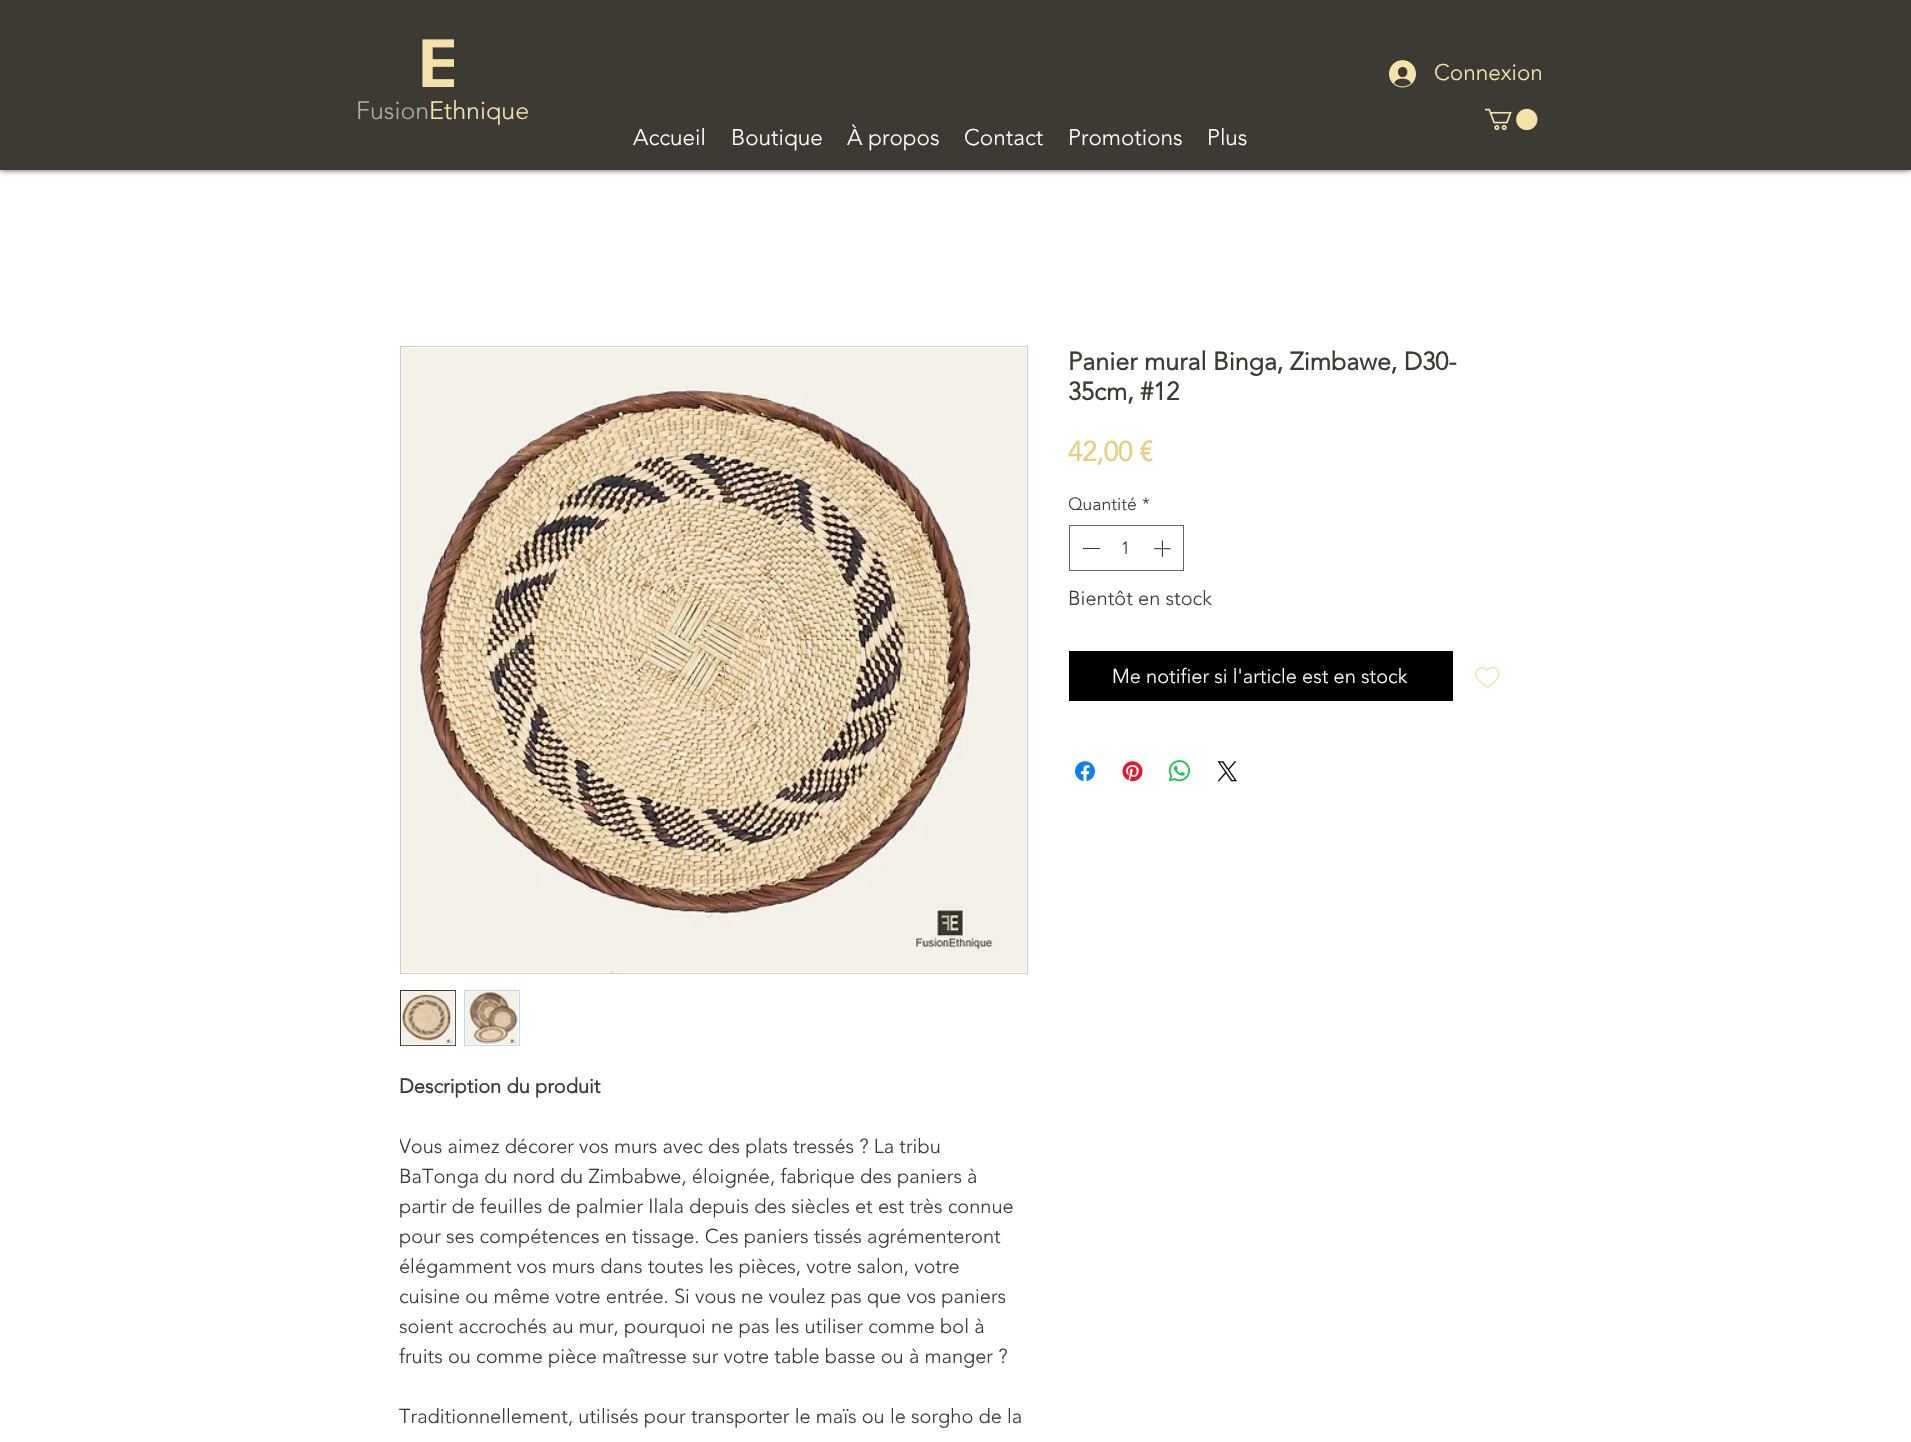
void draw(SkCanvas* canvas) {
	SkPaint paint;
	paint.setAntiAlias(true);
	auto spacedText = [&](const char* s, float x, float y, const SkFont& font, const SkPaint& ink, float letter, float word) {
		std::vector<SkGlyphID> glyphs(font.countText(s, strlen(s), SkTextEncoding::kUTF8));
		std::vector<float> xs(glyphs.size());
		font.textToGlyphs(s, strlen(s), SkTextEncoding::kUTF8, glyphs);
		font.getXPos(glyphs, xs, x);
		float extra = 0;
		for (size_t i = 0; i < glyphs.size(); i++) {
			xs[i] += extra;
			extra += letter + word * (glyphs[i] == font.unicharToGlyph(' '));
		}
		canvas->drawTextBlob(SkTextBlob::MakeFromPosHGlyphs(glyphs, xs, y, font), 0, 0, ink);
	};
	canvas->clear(0xffffffff);
	paint.setColor(0xb3000000);
	paint.setMaskFilter(SkMaskFilter::MakeBlur(kNormal_SkBlurStyle, 3));
	canvas->drawRect(SkRect::MakeXYWH(0, 0, 1911, 170), paint);
	paint.setMaskFilter(nullptr);
	paint.setColor(0xff3c3a33);
	canvas->drawRect(SkRect::MakeXYWH(0, 0, 1911, 170), paint);
	canvas->save();
	canvas->clipRect(SkRect::MakeXYWH(391, 35, 63, 63));
	SkFont f1(fontMgr->matchFamilyStyle("Liberation Sans", SkFontStyle::Bold()), 69);
	f1.setSubpixel(true);
	paint.setColor(0xfff3e2ac);
	spacedText("E", 418, 87, f1, paint, -11, 0);
	canvas->restore();
	canvas->drawImageRect(SkImages::DeferredFromEncodedData(SkData::MakeFromFileName("img1.png")), SkRect::MakeXYWH(1389, 60, 27, 28), SkSamplingOptions());
	SkFont f2(fontMgr->matchFamilyStyle("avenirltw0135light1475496", SkFontStyle(300, SkFontStyle::kNormal_Width, SkFontStyle::kUpright_Slant)), 22.5);
	f2.setSubpixel(true);
	canvas->drawString("Connexion", 1434, 80, f2, paint);
	SkFont f3(fontMgr->matchFamilyStyle("avenirltw0135light1475496", SkFontStyle(300, SkFontStyle::kNormal_Width, SkFontStyle::kUpright_Slant)), 25);
	f3.setSubpixel(true);
	paint.setColor(0xffadaa9f);
	canvas->drawString("Fusion", 356, 119, f3, paint);
	paint.setColor(0xfff3e2ac);
	canvas->drawString("Ethnique", 429, 119, f3, paint);
	canvas->drawImageRect(SkImages::DeferredFromEncodedData(SkData::MakeFromFileName("img2.png")), SkRect::MakeXYWH(1485, 108, 53, 23), SkSamplingOptions());
	paint.setColor(0xffffffff);
	canvas->drawString("Accueil", 633, 145, f2, paint);
	canvas->drawString("Boutique", 731, 145, f2, paint);
	canvas->drawString("À propos", 847, 145, f2, paint);
	canvas->drawString("Contact", 964, 145, f2, paint);
	canvas->drawString("Promotions", 1068, 145, f2, paint);
	canvas->drawString("Plus", 1207, 145, f2, paint);
	SkFont f4(fontMgr->matchFamilyStyle("avenirltw0135light1475496", SkFontStyle::Bold()), 25);
	f4.setSubpixel(true);
	paint.setColor(0xff3c3a33);
	canvas->drawString("Panier mural Binga, Zimbawe, D30-", 1068, 370, f4, paint);
	canvas->drawString("35cm, #12", 1068, 400, f4, paint);
	SkFont f5(fontMgr->matchFamilyStyle("avenirltw0135light1475496", SkFontStyle::Bold()), 27.5);
	f5.setSubpixel(true);
	paint.setColor(0xffe7cf81);
	canvas->drawString("42,00 €", 1068, 461, f5, paint);
	SkFont f6(fontMgr->matchFamilyStyle("avenirltw0135light1475496", SkFontStyle(300, SkFontStyle::kNormal_Width, SkFontStyle::kUpright_Slant)), 17.5);
	f6.setSubpixel(true);
	paint.setColor(0xff3c3a33);
	canvas->drawString("Quantité", 1068, 510, f6, paint);
	canvas->drawString("*", 1142, 510, f6, paint);
	paint.setStroke(true);
	paint.setStrokeWidth(1);
	paint.setColor(0xff666666);
	canvas->drawRect(SkRect::MakeXYWH(1069.5, 525.5, 114, 45), paint);
	paint.setStroke(false);
	paint.setColor(0xff3c3a33);
	canvas->drawRect(SkRect::MakeXYWH(1083, 548, 17, 1), paint);
	canvas->drawString("1", 1121, 554, f6, paint);
	canvas->drawImageRect(SkImages::DeferredFromEncodedData(SkData::MakeFromFileName("img3.png")), SkRect::MakeXYWH(1154, 540, 17, 17), SkSamplingOptions());
	SkFont f7(fontMgr->matchFamilyStyle("avenirltw0135light1475496", SkFontStyle(300, SkFontStyle::kNormal_Width, SkFontStyle::kUpright_Slant)), 20);
	f7.setSubpixel(true);
	canvas->drawString("Bientôt en stock", 1068, 605, f7, paint);
	paint.setColor(0xff000000);
	canvas->drawRect(SkRect::MakeXYWH(1069, 651, 384, 50), paint);
	paint.setColor(0xffffffff);
	canvas->drawString("Me notifier si l'article est en stock", 1112, 683, f7, paint);
	canvas->drawImageRect(SkImages::DeferredFromEncodedData(SkData::MakeFromFileName("img4.png")), SkRect::MakeXYWH(1475, 666, 25, 22), SkSamplingOptions());
	canvas->drawImageRect(SkImages::DeferredFromEncodedData(SkData::MakeFromFileName("img5.png")), SkRect::MakeXYWH(1075, 761, 20, 21), SkSamplingOptions());
	canvas->drawImageRect(SkImages::DeferredFromEncodedData(SkData::MakeFromFileName("img6.png")), SkRect::MakeXYWH(1122, 761, 21, 21), SkSamplingOptions());
	canvas->drawImageRect(SkImages::DeferredFromEncodedData(SkData::MakeFromFileName("img7.png")), SkRect::MakeXYWH(1168, 760, 22, 22), SkSamplingOptions());
	canvas->drawImageRect(SkImages::DeferredFromEncodedData(SkData::MakeFromFileName("img8.png")), SkRect::MakeXYWH(1217, 761, 20, 21), SkSamplingOptions());
	paint.setStroke(true);
	paint.setColor(0xffcccccc);
	canvas->drawRect(SkRect::MakeXYWH(400.5, 346.5, 627, 627), paint);
	canvas->drawImageRect(SkImages::DeferredFromEncodedData(SkData::MakeFromFileName("img9.png")), SkRect::MakeXYWH(401, 347, 626, 626), SkSamplingOptions());
	paint.setColor(0xff3c3a33);
	canvas->drawRect(SkRect::MakeXYWH(400.5, 990.5, 55, 55), paint);
	canvas->drawImageRect(SkImages::DeferredFromEncodedData(SkData::MakeFromFileName("img10.png")), SkRect::MakeXYWH(401, 991, 55, 55), SkSamplingOptions());
	paint.setColor(0xffbdd6f3);
	canvas->drawRect(SkRect::MakeXYWH(464.5, 990.5, 55, 55), paint);
	canvas->drawImageRect(SkImages::DeferredFromEncodedData(SkData::MakeFromFileName("img11.png")), SkRect::MakeXYWH(465, 991, 55, 55), SkSamplingOptions());
	SkFont f8(fontMgr->matchFamilyStyle("avenirltw0135light1475496", SkFontStyle::Bold()), 20);
	f8.setSubpixel(true);
	paint.setStroke(false);
	paint.setColor(0xff3c3a33);
	canvas->drawString("Description du produit", 399, 1093, f8, paint);
	canvas->save();
	canvas->clipRect(SkRect::MakeXYWH(400, 1071, 625, 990));
	canvas->drawString("Vous aimez décorer vos murs avec des plats tressés ? La tribu", 399, 1153, f7, paint);
	canvas->restore();
	canvas->drawString("BaTonga du nord du Zimbabwe, éloignée, fabrique des paniers à", 399, 1183, f7, paint);
	canvas->drawString("partir de feuilles de palmier Ilala depuis des siècles et est très connue", 399, 1213, f7, paint);
	canvas->drawString("pour ses compétences en tissage. Ces paniers tissés agrémenteront", 399, 1243, f7, paint);
	canvas->drawString("élégamment vos murs dans toutes les pièces, votre salon, votre", 399, 1273, f7, paint);
	canvas->drawString("cuisine ou même votre entrée. Si vous ne voulez pas que vos paniers", 399, 1303, f7, paint);
	canvas->drawString("soient accrochés au mur, pourquoi ne pas les utiliser comme bol à", 399, 1333, f7, paint);
	canvas->drawString("fruits ou comme pièce maîtresse sur votre table basse ou à manger ?", 399, 1363, f7, paint);
	canvas->drawString("Traditionnellement, utilisés pour transporter le maïs ou le sorgho de la", 399, 1423, f7, paint);
}
